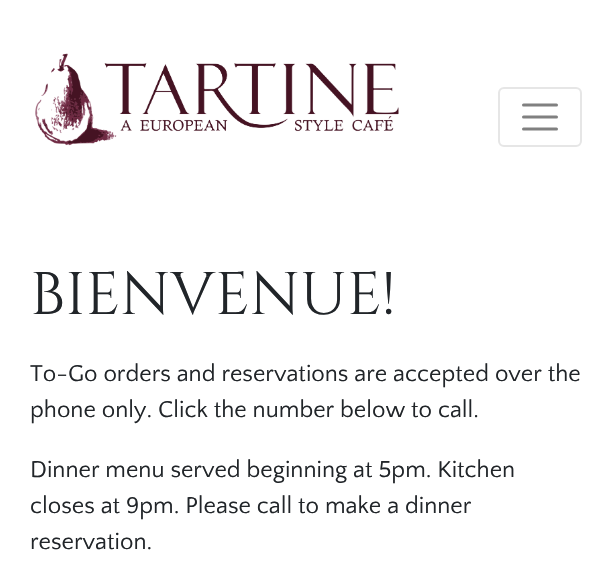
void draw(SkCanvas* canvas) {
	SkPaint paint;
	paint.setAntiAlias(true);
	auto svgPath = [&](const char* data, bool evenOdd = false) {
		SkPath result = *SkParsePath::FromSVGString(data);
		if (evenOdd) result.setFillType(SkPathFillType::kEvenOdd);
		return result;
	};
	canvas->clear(0xffffffff);
	canvas->drawImageRect(SkImages::DeferredFromEncodedData(SkData::MakeFromFileName("img1.png")), SkRect::MakeXYWH(35, 53, 364, 93), SkSamplingOptions());
	paint.setStroke(true);
	paint.setStrokeWidth(2);
	paint.setColor(0xffe6e6e6);
	canvas->drawRoundRect(SkRect::MakeXYWH(499, 88, 82, 58), 5, 5, paint);
	paint.setStrokeWidth(3);
	paint.setStrokeCap(SkPaint::kRound_Cap);
	paint.setColor(0xff808080);
	canvas->drawPath(svgPath("M523.5 105H556.5M523.5 117H556.5M523.5 129H556.5"), paint);
	SkFont f1(fontMgr->matchFamilyStyle("Cinzel", SkFontStyle::Normal()), 60);
	f1.setSubpixel(true);
	paint.setStroke(false);
	paint.setColor(0xff212529);
	canvas->drawString("BIENVENUE!", 30, 314, f1, paint);
	SkFont f2(fontMgr->matchFamilyStyle("Quattrocento Sans", SkFontStyle::Normal()), 24);
	f2.setSubpixel(true);
	canvas->drawString("To-Go orders and reservations are accepted over the", 30, 381, f2, paint);
	canvas->drawString("phone only. Click the number below to call.", 30, 417, f2, paint);
	canvas->drawString("Dinner menu served beginning at 5pm. Kitchen", 30, 477, f2, paint);
	canvas->drawString("closes at 9pm. Please call to make a dinner", 30, 513, f2, paint);
	canvas->drawString("reservation.", 30, 549, f2, paint);
}
